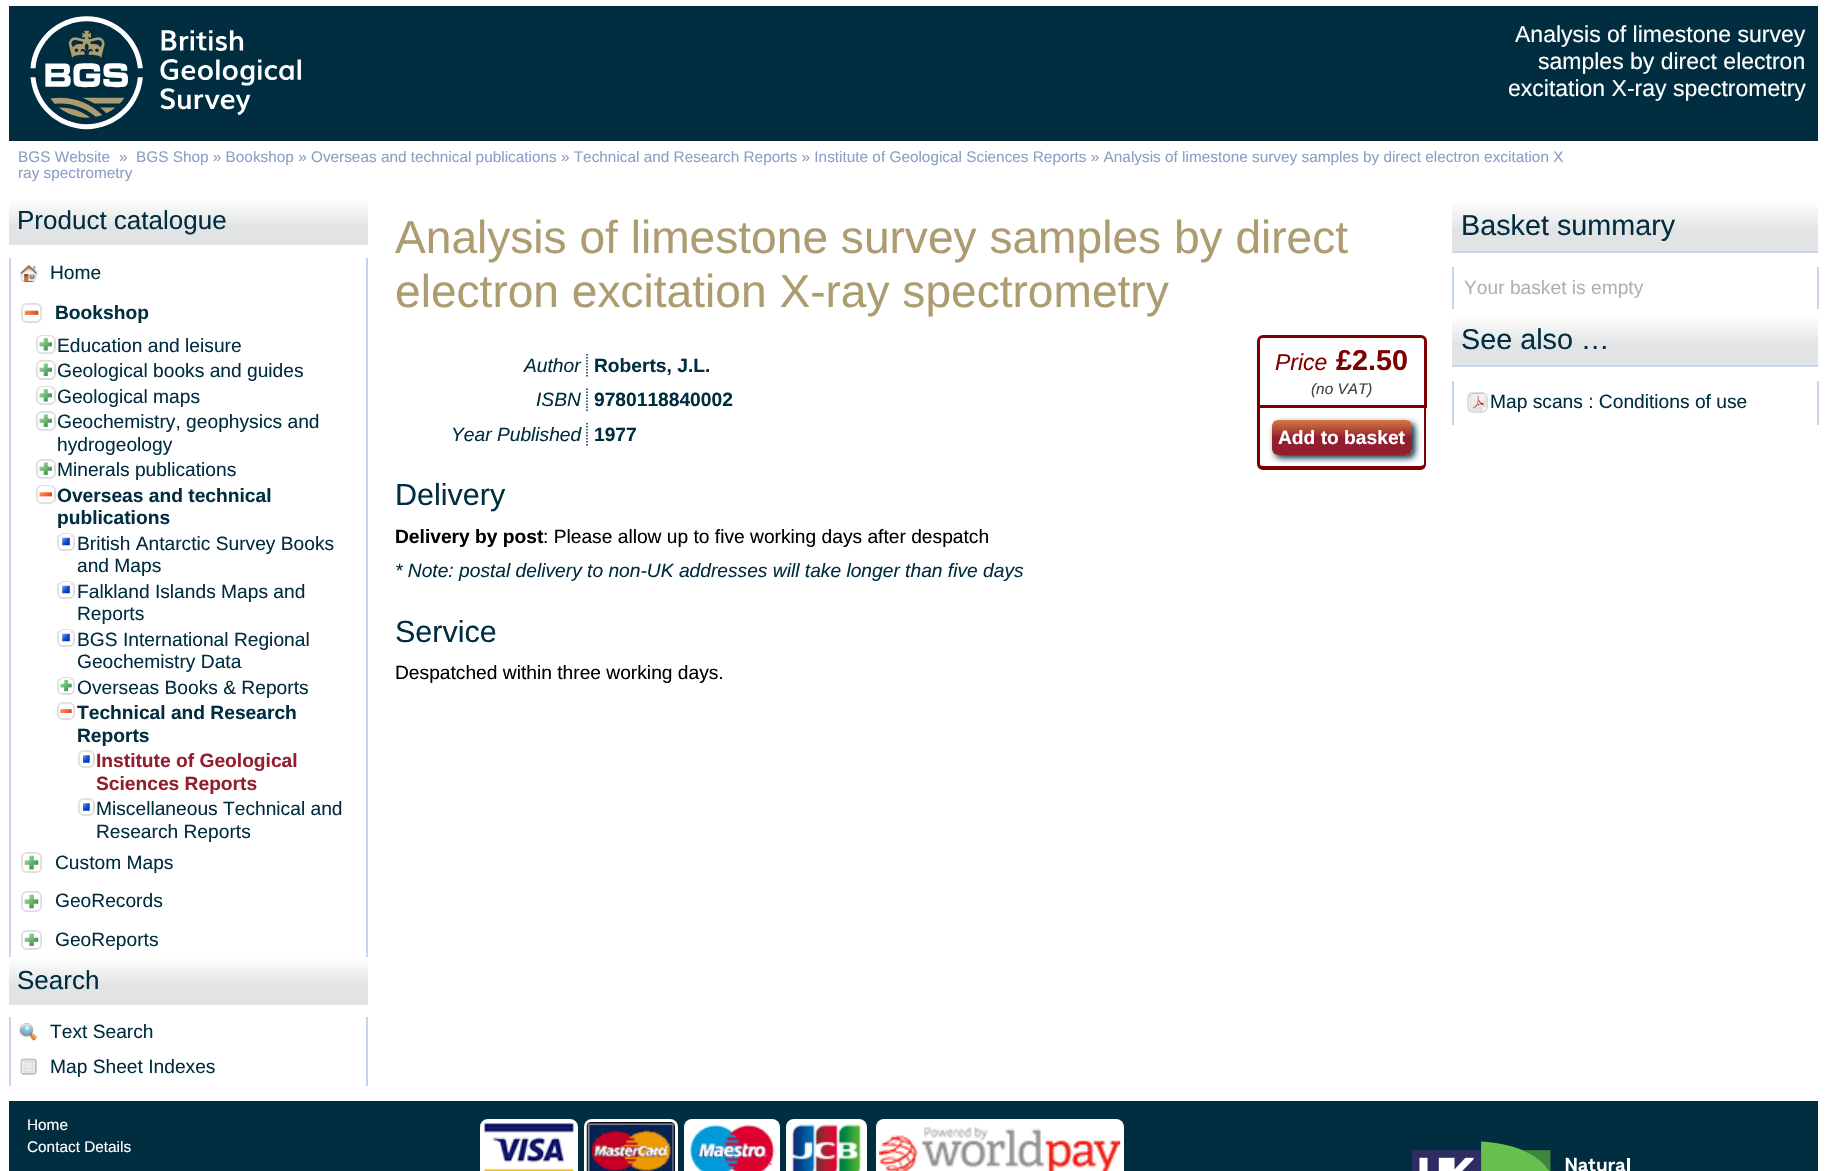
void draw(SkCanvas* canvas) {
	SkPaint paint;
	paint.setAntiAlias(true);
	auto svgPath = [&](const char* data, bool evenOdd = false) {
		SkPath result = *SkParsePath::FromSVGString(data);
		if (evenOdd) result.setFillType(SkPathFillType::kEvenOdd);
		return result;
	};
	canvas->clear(0xffffffff);
	paint.setColor(0xff002e40);
	canvas->drawRect(SkRect::MakeXYWH(9, 6, 1809, 135), paint);
	canvas->drawImageRect(SkImages::DeferredFromEncodedData(SkData::MakeFromFileName("img1.png")), SkRect::MakeXYWH(30, 16, 271, 114), SkSamplingOptions());
	SkFont f1(fontMgr->matchFamilyStyle("Liberation Sans", SkFontStyle::Normal()), 23);
	f1.setSubpixel(true);
	paint.setColor(0xffffffff);
	canvas->drawString("Analysis of limestone survey", 1515, 42, f1, paint);
	canvas->drawString("samples by direct electron", 1538, 69, f1, paint);
	canvas->drawString("excitation X-ray spectrometry", 1508, 96, f1, paint);
	SkFont f2(fontMgr->matchFamilyStyle("Liberation Sans", SkFontStyle::Normal()), 15.35);
	f2.setSubpixel(true);
	paint.setColor(0xff8aa0c6);
	canvas->drawString("BGS Website", 18, 162, f2, paint);
	canvas->drawString("»", 119, 162, f2, paint);
	canvas->drawString("BGS Shop » Bookshop » Overseas and technical publications » Technical and Research Reports » Institute of Geological Sciences Reports » Analysis of limestone survey samples by direct electron excitation X", 136, 162, f2, paint);
	canvas->drawString("ray spectrometry", 18, 178, f2, paint);
	{
		const SkColor colors[] = {0xffffffff, 0xffe2e3e4};
		const float stops[] = {0, 0.6};
		const SkPoint ends[] = {{188, 198}, {188, 245}};
		paint.setShader(SkGradientShader::MakeLinear(ends, colors, stops, 2, SkTileMode::kClamp));
		paint.setAlpha(255);
	}
	canvas->drawPath(svgPath("M14 198H363C366 198 368 200 368 203V245H9V203C9 200 11 198 14 198Z"), paint);
	SkFont f3(fontMgr->matchFamilyStyle("Liberation Sans", SkFontStyle::Normal()), 26);
	f3.setSubpixel(true);
	paint.setShader(nullptr);
	paint.setColor(0xff002e40);
	canvas->drawString("Product catalogue", 17, 229, f3, paint);
	paint.setColor(0xffc7d5ec);
	canvas->drawRect(SkRect::MakeXYWH(366, 258, 2, 699), paint);
	canvas->drawRect(SkRect::MakeXYWH(9, 258, 2, 699), paint);
	canvas->drawImageRect(SkImages::DeferredFromEncodedData(SkData::MakeFromFileName("img2.png")), SkRect::MakeXYWH(20, 265, 18, 17), SkSamplingOptions());
	SkFont f4(fontMgr->matchFamilyStyle("Liberation Sans", SkFontStyle::Normal()), 19.2);
	f4.setSubpixel(true);
	paint.setColor(0xff002e40);
	canvas->drawString("Home", 50, 279, f4, paint);
	paint.setStroke(true);
	paint.setStrokeWidth(2);
	paint.setColor(0xffdddddd);
	canvas->drawRoundRect(SkRect::MakeXYWH(22, 304, 19, 18), 5, 5, paint);
	canvas->drawImageRect(SkImages::DeferredFromEncodedData(SkData::MakeFromFileName("img3.png")), SkRect::MakeXYWH(22, 304, 19, 17), SkSamplingOptions());
	SkFont f5(fontMgr->matchFamilyStyle("Liberation Sans", SkFontStyle::Bold()), 19.2);
	f5.setSubpixel(true);
	paint.setStroke(false);
	paint.setColor(0xff002e40);
	canvas->drawString("Bookshop", 55, 319, f5, paint);
	paint.setStroke(true);
	paint.setColor(0xffdddddd);
	canvas->drawRoundRect(SkRect::MakeXYWH(37, 336, 18, 17), 5, 5, paint);
	canvas->drawImageRect(SkImages::DeferredFromEncodedData(SkData::MakeFromFileName("img4.png")), SkRect::MakeXYWH(37, 336, 17, 17), SkSamplingOptions());
	paint.setStroke(false);
	paint.setColor(0xff002e40);
	canvas->drawString("Education and leisure", 57, 352, f4, paint);
	paint.setStroke(true);
	paint.setColor(0xffdddddd);
	canvas->drawRoundRect(SkRect::MakeXYWH(37, 361, 18, 18), 5, 5, paint);
	canvas->drawImageRect(SkImages::DeferredFromEncodedData(SkData::MakeFromFileName("img5.png")), SkRect::MakeXYWH(37, 361, 17, 17), SkSamplingOptions());
	paint.setStroke(false);
	paint.setColor(0xff002e40);
	canvas->drawString("Geological books and guides", 57, 377, f4, paint);
	paint.setStroke(true);
	paint.setColor(0xffdddddd);
	canvas->drawRoundRect(SkRect::MakeXYWH(37, 387, 18, 17), 5, 5, paint);
	canvas->drawImageRect(SkImages::DeferredFromEncodedData(SkData::MakeFromFileName("img4.png")), SkRect::MakeXYWH(37, 387, 17, 17), SkSamplingOptions());
	paint.setStroke(false);
	paint.setColor(0xff002e40);
	canvas->drawString("Geological maps", 57, 403, f4, paint);
	paint.setStroke(true);
	paint.setColor(0xffdddddd);
	canvas->drawRoundRect(SkRect::MakeXYWH(37, 412, 18, 18), 5, 5, paint);
	canvas->drawImageRect(SkImages::DeferredFromEncodedData(SkData::MakeFromFileName("img5.png")), SkRect::MakeXYWH(37, 412, 17, 17), SkSamplingOptions());
	paint.setStroke(false);
	paint.setColor(0xff002e40);
	canvas->drawString("Geochemistry, geophysics and", 57, 428, f4, paint);
	canvas->drawString("hydrogeology", 57, 451, f4, paint);
	paint.setStroke(true);
	paint.setColor(0xffdddddd);
	canvas->drawRoundRect(SkRect::MakeXYWH(37, 460, 18, 18), 5, 5, paint);
	canvas->drawImageRect(SkImages::DeferredFromEncodedData(SkData::MakeFromFileName("img5.png")), SkRect::MakeXYWH(37, 460, 17, 17), SkSamplingOptions());
	paint.setStroke(false);
	paint.setColor(0xff002e40);
	canvas->drawString("Minerals publications", 57, 476, f4, paint);
	paint.setStroke(true);
	paint.setColor(0xffdddddd);
	canvas->drawRoundRect(SkRect::MakeXYWH(37, 486, 18, 17), 5, 5, paint);
	canvas->drawImageRect(SkImages::DeferredFromEncodedData(SkData::MakeFromFileName("img6.png")), SkRect::MakeXYWH(37, 486, 17, 17), SkSamplingOptions());
	paint.setStroke(false);
	paint.setColor(0xff002e40);
	canvas->drawString("Overseas and technical", 57, 502, f5, paint);
	canvas->drawString("publications", 57, 524, f5, paint);
	paint.setStroke(true);
	paint.setColor(0xffdddddd);
	canvas->drawRoundRect(SkRect::MakeXYWH(58, 534, 16, 16), 5, 5, paint);
	canvas->drawImageRect(SkImages::DeferredFromEncodedData(SkData::MakeFromFileName("img7.png")), SkRect::MakeXYWH(58, 534, 16, 15), SkSamplingOptions());
	paint.setStroke(false);
	paint.setColor(0xff002e40);
	canvas->drawString("British Antarctic Survey Books", 77, 550, f4, paint);
	canvas->drawString("and Maps", 77, 572, f4, paint);
	paint.setStroke(true);
	paint.setColor(0xffdddddd);
	canvas->drawRoundRect(SkRect::MakeXYWH(58, 582, 16, 16), 5, 5, paint);
	canvas->drawImageRect(SkImages::DeferredFromEncodedData(SkData::MakeFromFileName("img8.png")), SkRect::MakeXYWH(58, 582, 16, 15), SkSamplingOptions());
	paint.setStroke(false);
	paint.setColor(0xff002e40);
	canvas->drawString("Falkland Islands Maps and", 77, 598, f4, paint);
	canvas->drawString("Reports", 77, 620, f4, paint);
	paint.setStroke(true);
	paint.setColor(0xffdddddd);
	canvas->drawRoundRect(SkRect::MakeXYWH(58, 630, 16, 16), 5, 5, paint);
	canvas->drawImageRect(SkImages::DeferredFromEncodedData(SkData::MakeFromFileName("img8.png")), SkRect::MakeXYWH(58, 630, 16, 15), SkSamplingOptions());
	paint.setStroke(false);
	paint.setColor(0xff002e40);
	canvas->drawString("BGS International Regional", 77, 646, f4, paint);
	canvas->drawString("Geochemistry Data", 77, 668, f4, paint);
	paint.setStroke(true);
	paint.setColor(0xffdddddd);
	canvas->drawRoundRect(SkRect::MakeXYWH(58, 678, 16, 16), 5, 5, paint);
	canvas->drawImageRect(SkImages::DeferredFromEncodedData(SkData::MakeFromFileName("img9.png")), SkRect::MakeXYWH(58, 678, 16, 15), SkSamplingOptions());
	paint.setStroke(false);
	paint.setColor(0xff002e40);
	canvas->drawString("Overseas Books & Reports", 77, 694, f4, paint);
	paint.setStroke(true);
	paint.setColor(0xffdddddd);
	canvas->drawRoundRect(SkRect::MakeXYWH(58, 703, 16, 16), 5, 5, paint);
	canvas->drawImageRect(SkImages::DeferredFromEncodedData(SkData::MakeFromFileName("img10.png")), SkRect::MakeXYWH(58, 703, 16, 16), SkSamplingOptions());
	paint.setStroke(false);
	paint.setColor(0xff002e40);
	canvas->drawString("Technical and Research", 77, 719, f5, paint);
	canvas->drawString("Reports", 77, 742, f5, paint);
	paint.setStroke(true);
	paint.setColor(0xffdddddd);
	canvas->drawRoundRect(SkRect::MakeXYWH(79, 751, 15, 16), 5, 5, paint);
	canvas->drawImageRect(SkImages::DeferredFromEncodedData(SkData::MakeFromFileName("img11.png")), SkRect::MakeXYWH(79, 751, 14, 16), SkSamplingOptions());
	paint.setStroke(false);
	paint.setColor(0xff921f30);
	canvas->drawString("Institute of Geological", 96, 767, f5, paint);
	canvas->drawString("Sciences Reports", 96, 790, f5, paint);
	paint.setStroke(true);
	paint.setColor(0xffdddddd);
	canvas->drawRoundRect(SkRect::MakeXYWH(79, 799, 15, 16), 5, 5, paint);
	canvas->drawImageRect(SkImages::DeferredFromEncodedData(SkData::MakeFromFileName("img12.png")), SkRect::MakeXYWH(79, 799, 14, 16), SkSamplingOptions());
	paint.setStroke(false);
	paint.setColor(0xff002e40);
	canvas->drawString("Miscellaneous Technical and", 96, 815, f4, paint);
	canvas->drawString("Research Reports", 96, 838, f4, paint);
	paint.setStroke(true);
	paint.setColor(0xffdddddd);
	canvas->drawRoundRect(SkRect::MakeXYWH(22, 853, 19, 19), 5, 5, paint);
	canvas->drawImageRect(SkImages::DeferredFromEncodedData(SkData::MakeFromFileName("img13.png")), SkRect::MakeXYWH(22, 853, 19, 19), SkSamplingOptions());
	paint.setStroke(false);
	paint.setColor(0xff002e40);
	canvas->drawString("Custom Maps", 55, 869, f4, paint);
	paint.setStroke(true);
	paint.setColor(0xffdddddd);
	canvas->drawRoundRect(SkRect::MakeXYWH(22, 892, 19, 19), 5, 5, paint);
	canvas->drawImageRect(SkImages::DeferredFromEncodedData(SkData::MakeFromFileName("img13.png")), SkRect::MakeXYWH(22, 892, 19, 19), SkSamplingOptions());
	paint.setStroke(false);
	paint.setColor(0xff002e40);
	canvas->drawString("GeoRecords", 55, 907, f4, paint);
	paint.setStroke(true);
	paint.setColor(0xffdddddd);
	canvas->drawRoundRect(SkRect::MakeXYWH(22, 931, 19, 18), 5, 5, paint);
	canvas->drawImageRect(SkImages::DeferredFromEncodedData(SkData::MakeFromFileName("img14.png")), SkRect::MakeXYWH(22, 931, 19, 17), SkSamplingOptions());
	paint.setStroke(false);
	paint.setColor(0xff002e40);
	canvas->drawString("GeoReports", 55, 946, f4, paint);
	{
		const SkColor colors[] = {0xffffffff, 0xffe2e3e4};
		const float stops[] = {0, 0.6};
		const SkPoint ends[] = {{188, 957}, {188, 1005}};
		paint.setShader(SkGradientShader::MakeLinear(ends, colors, stops, 2, SkTileMode::kClamp));
		paint.setAlpha(255);
	}
	canvas->drawPath(svgPath("M14 957H363C366 957 368 959 368 962V1005H9V962C9 959 11 957 14 957Z"), paint);
	paint.setShader(nullptr);
	paint.setColor(0xff002e40);
	canvas->drawString("Search", 17, 989, f3, paint);
	paint.setColor(0xffc7d5ec);
	canvas->drawRect(SkRect::MakeXYWH(366, 1017, 2, 69), paint);
	canvas->drawRect(SkRect::MakeXYWH(9, 1017, 2, 69), paint);
	canvas->drawImageRect(SkImages::DeferredFromEncodedData(SkData::MakeFromFileName("img15.png")), SkRect::MakeXYWH(19, 1023, 19, 18), SkSamplingOptions());
	paint.setColor(0xff002e40);
	canvas->drawString("Text Search", 50, 1038, f4, paint);
	canvas->drawImageRect(SkImages::DeferredFromEncodedData(SkData::MakeFromFileName("img16.png")), SkRect::MakeXYWH(20, 1058, 17, 17), SkSamplingOptions());
	canvas->drawString("Map Sheet Indexes", 50, 1073, f4, paint);
	SkFont f6(fontMgr->matchFamilyStyle("Liberation Sans", SkFontStyle::Normal()), 46.1);
	f6.setSubpixel(true);
	paint.setColor(0xffad9c70);
	canvas->drawString("Analysis of limestone survey samples by direct", 395, 253, f6, paint);
	canvas->drawString("electron excitation X-ray spectrometry", 395, 307, f6, paint);
	paint.setStroke(true);
	paint.setStrokeWidth(1.5);
	paint.setColor(0xff002e40);
	paint.setPathEffect(SkDashPathEffect::Make({{1.5f, 1.5f}}, 0));
	canvas->drawPath(svgPath("M587 354V376.5"), paint);
	paint.setPathEffect(nullptr);
	SkFont f7(fontMgr->matchFamilyStyle("Liberation Sans", SkFontStyle::Italic()), 19.2);
	f7.setSubpixel(true);
	paint.setStroke(false);
	canvas->drawString("Author", 524, 372, f7, paint);
	canvas->drawString("Roberts, J.L.", 594, 372, f5, paint);
	paint.setStroke(true);
	paint.setStrokeWidth(3);
	paint.setColor(0xff800000);
	canvas->drawPath(svgPath("M1263 336.5H1421C1423.5 336.5 1425.5 338.5 1425.5 341V406.5H1258.5V341C1258.5 338.5 1260.5 336.5 1263 336.5Z"), paint);
	SkFont f8(fontMgr->matchFamilyStyle("Liberation Sans", SkFontStyle::Italic()), 23);
	f8.setSubpixel(true);
	paint.setStroke(false);
	canvas->drawString("Price", 1275, 370, f8, paint);
	SkFont f9(fontMgr->matchFamilyStyle("Liberation Sans", SkFontStyle::Bold()), 28.75);
	f9.setSubpixel(true);
	canvas->drawString("£2.50", 1336, 370, f9, paint);
	SkFont f10(fontMgr->matchFamilyStyle("Liberation Sans", SkFontStyle::Italic()), 15.35);
	f10.setSubpixel(true);
	paint.setColor(0xff404040);
	canvas->drawString("(no VAT)", 1311, 394, f10, paint);
	paint.setColor(0xff800000);
	canvas->drawPath(svgPath("M1257 408H1426V464C1426 467 1424 470 1420 470H1263C1260 470 1257 467 1257 464ZM1260 408H1424V464C1424 465 1422 466 1420 466H1263C1261 466 1260 465 1260 464Z", true), paint);
	canvas->save();
	canvas->clipPath(svgPath("M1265 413H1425V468H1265ZM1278 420H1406C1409.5 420 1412 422.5 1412 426V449C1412 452.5 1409.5 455 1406 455H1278C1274.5 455 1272 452.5 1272 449V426C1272 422.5 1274.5 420 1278 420Z", true), true);
	paint.setColor(0xff002e40);
	paint.setMaskFilter(SkMaskFilter::MakeBlur(kNormal_SkBlurStyle, 3));
	canvas->drawRoundRect(SkRect::MakeXYWH(1275, 423, 140, 35), 6, 6, paint);
	paint.setMaskFilter(nullptr);
	canvas->restore();
	{
		const SkColor colors[] = {0xccc95513, 0xff921f30};
		const float stops[] = {0, 0.5};
		const SkPoint ends[] = {{1342, 420}, {1342, 455}};
		paint.setShader(SkGradientShader::MakeLinear(ends, colors, stops, 2, SkTileMode::kClamp));
		paint.setAlpha(255);
	}
	canvas->drawRoundRect(SkRect::MakeXYWH(1272, 420, 140, 35), 6, 6, paint);
	paint.setShader(nullptr);
	paint.setColor(0xffffffff);
	canvas->drawString("Add to basket", 1278, 444, f5, paint);
	paint.setStroke(true);
	paint.setStrokeWidth(1.5);
	paint.setColor(0xff002e40);
	paint.setPathEffect(SkDashPathEffect::Make({{1.5f, 1.5f}}, 0));
	canvas->drawPath(svgPath("M587 388.5V411"), paint);
	paint.setPathEffect(nullptr);
	paint.setStroke(false);
	canvas->drawString("ISBN", 536, 406, f7, paint);
	canvas->drawString("9780118840002", 594, 406, f5, paint);
	paint.setStroke(true);
	paint.setPathEffect(SkDashPathEffect::Make({{1.5f, 1.5f}}, 0));
	canvas->drawPath(svgPath("M587 423V445.5"), paint);
	paint.setPathEffect(nullptr);
	paint.setStroke(false);
	canvas->drawString("Year Published", 451, 441, f7, paint);
	canvas->drawString("1977", 594, 441, f5, paint);
	SkFont f11(fontMgr->matchFamilyStyle("Liberation Sans", SkFontStyle::Normal()), 30.5);
	f11.setSubpixel(true);
	canvas->drawString("Delivery", 395, 505, f11, paint);
	paint.setColor(0xff000000);
	canvas->drawString("Delivery by post", 395, 543, f5, paint);
	canvas->drawString(": Please allow up to five working days after despatch", 543, 543, f4, paint);
	paint.setColor(0xff002e40);
	canvas->drawString("* Note: postal delivery to non-UK addresses will take longer than five days", 395, 577, f7, paint);
	canvas->drawString("Service", 395, 642, f11, paint);
	paint.setColor(0xff000000);
	canvas->drawString("Despatched within three working days.", 395, 679, f4, paint);
	{
		const SkColor colors[] = {0xffffffff, 0xffe2e3e4};
		const float stops[] = {0, 0.6};
		const SkPoint ends[] = {{1635, 201}, {1635, 251}};
		paint.setShader(SkGradientShader::MakeLinear(ends, colors, stops, 2, SkTileMode::kClamp));
		paint.setAlpha(255);
	}
	canvas->drawPath(svgPath("M1458 201H1812C1815.5 201 1818 203.5 1818 207V251H1452V207C1452 203.5 1454.5 201 1458 201Z"), paint);
	paint.setShader(nullptr);
	paint.setColor(0xffc7d5ec);
	canvas->drawRect(SkRect::MakeXYWH(1452, 251, 366, 2), paint);
	SkFont f12(fontMgr->matchFamilyStyle("Liberation Sans", SkFontStyle::Normal()), 28.75);
	f12.setSubpixel(true);
	paint.setColor(0xff002e40);
	canvas->drawString("Basket summary", 1461, 235, f12, paint);
	paint.setColor(0xffc7d5ec);
	canvas->drawRect(SkRect::MakeXYWH(1817, 267, 2, 42), paint);
	canvas->drawRect(SkRect::MakeXYWH(1452, 267, 2, 42), paint);
	paint.setColor(0xffb0b1b3);
	canvas->drawString("Your basket is empty", 1464, 294, f4, paint);
	{
		const SkColor colors[] = {0xffffffff, 0xffe2e3e4};
		const float stops[] = {0, 0.6};
		const SkPoint ends[] = {{1635, 315}, {1635, 365}};
		paint.setShader(SkGradientShader::MakeLinear(ends, colors, stops, 2, SkTileMode::kClamp));
		paint.setAlpha(255);
	}
	canvas->drawPath(svgPath("M1458 315H1812C1815.5 315 1818 317.5 1818 321V365H1452V321C1452 317.5 1454.5 315 1458 315Z"), paint);
	paint.setShader(nullptr);
	paint.setColor(0xffc7d5ec);
	canvas->drawRect(SkRect::MakeXYWH(1452, 365, 366, 2), paint);
	paint.setColor(0xff002e40);
	canvas->drawString("See also …", 1461, 349, f12, paint);
	paint.setColor(0xffc7d5ec);
	canvas->drawRect(SkRect::MakeXYWH(1817, 381, 2, 44), paint);
	canvas->drawRect(SkRect::MakeXYWH(1452, 381, 2, 44), paint);
	paint.setStroke(true);
	paint.setStrokeWidth(2);
	paint.setColor(0xffdddddd);
	canvas->drawRoundRect(SkRect::MakeXYWH(1468, 393, 19, 19), 5, 5, paint);
	canvas->drawImageRect(SkImages::DeferredFromEncodedData(SkData::MakeFromFileName("img17.png")), SkRect::MakeXYWH(1469, 393, 17, 18), SkSamplingOptions());
	paint.setStroke(false);
	paint.setColor(0xff002e40);
	canvas->drawString("Map scans : Conditions of use", 1490, 408, f4, paint);
	canvas->drawRect(SkRect::MakeXYWH(9, 1101, 1809, 70), paint);
	paint.setColor(0xffffffff);
	canvas->drawString("Home", 27, 1130, f2, paint);
	canvas->drawString("Contact Details", 27, 1152, f2, paint);
	canvas->drawRoundRect(SkRect::MakeXYWH(480, 1119, 98, 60), 8, 8, paint);
	canvas->drawRoundRect(SkRect::MakeXYWH(584, 1119, 94, 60), 8, 8, paint);
	canvas->drawRoundRect(SkRect::MakeXYWH(684, 1119, 96, 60), 8, 8, paint);
	canvas->drawRoundRect(SkRect::MakeXYWH(786, 1119, 81, 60), 8, 8, paint);
	canvas->drawRoundRect(SkRect::MakeXYWH(876, 1119, 248, 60), 8, 8, paint);
	canvas->drawImageRect(SkImages::DeferredFromEncodedData(SkData::MakeFromFileName("img18.png")), SkRect::MakeXYWH(484, 1123, 91, 48), SkSamplingOptions());
	canvas->drawImageRect(SkImages::DeferredFromEncodedData(SkData::MakeFromFileName("img19.png")), SkRect::MakeXYWH(586, 1122, 89, 49), SkSamplingOptions());
	canvas->drawImageRect(SkImages::DeferredFromEncodedData(SkData::MakeFromFileName("img20.png")), SkRect::MakeXYWH(689, 1124, 86, 47), SkSamplingOptions());
	canvas->drawImageRect(SkImages::DeferredFromEncodedData(SkData::MakeFromFileName("img21.png")), SkRect::MakeXYWH(791, 1124, 71, 47), SkSamplingOptions());
	canvas->drawImageRect(SkImages::DeferredFromEncodedData(SkData::MakeFromFileName("img22.png")), SkRect::MakeXYWH(879, 1127, 242, 44), SkSamplingOptions());
	canvas->drawImageRect(SkImages::DeferredFromEncodedData(SkData::MakeFromFileName("img23.png")), SkRect::MakeXYWH(1412, 1141, 218, 30), SkSamplingOptions());
}
